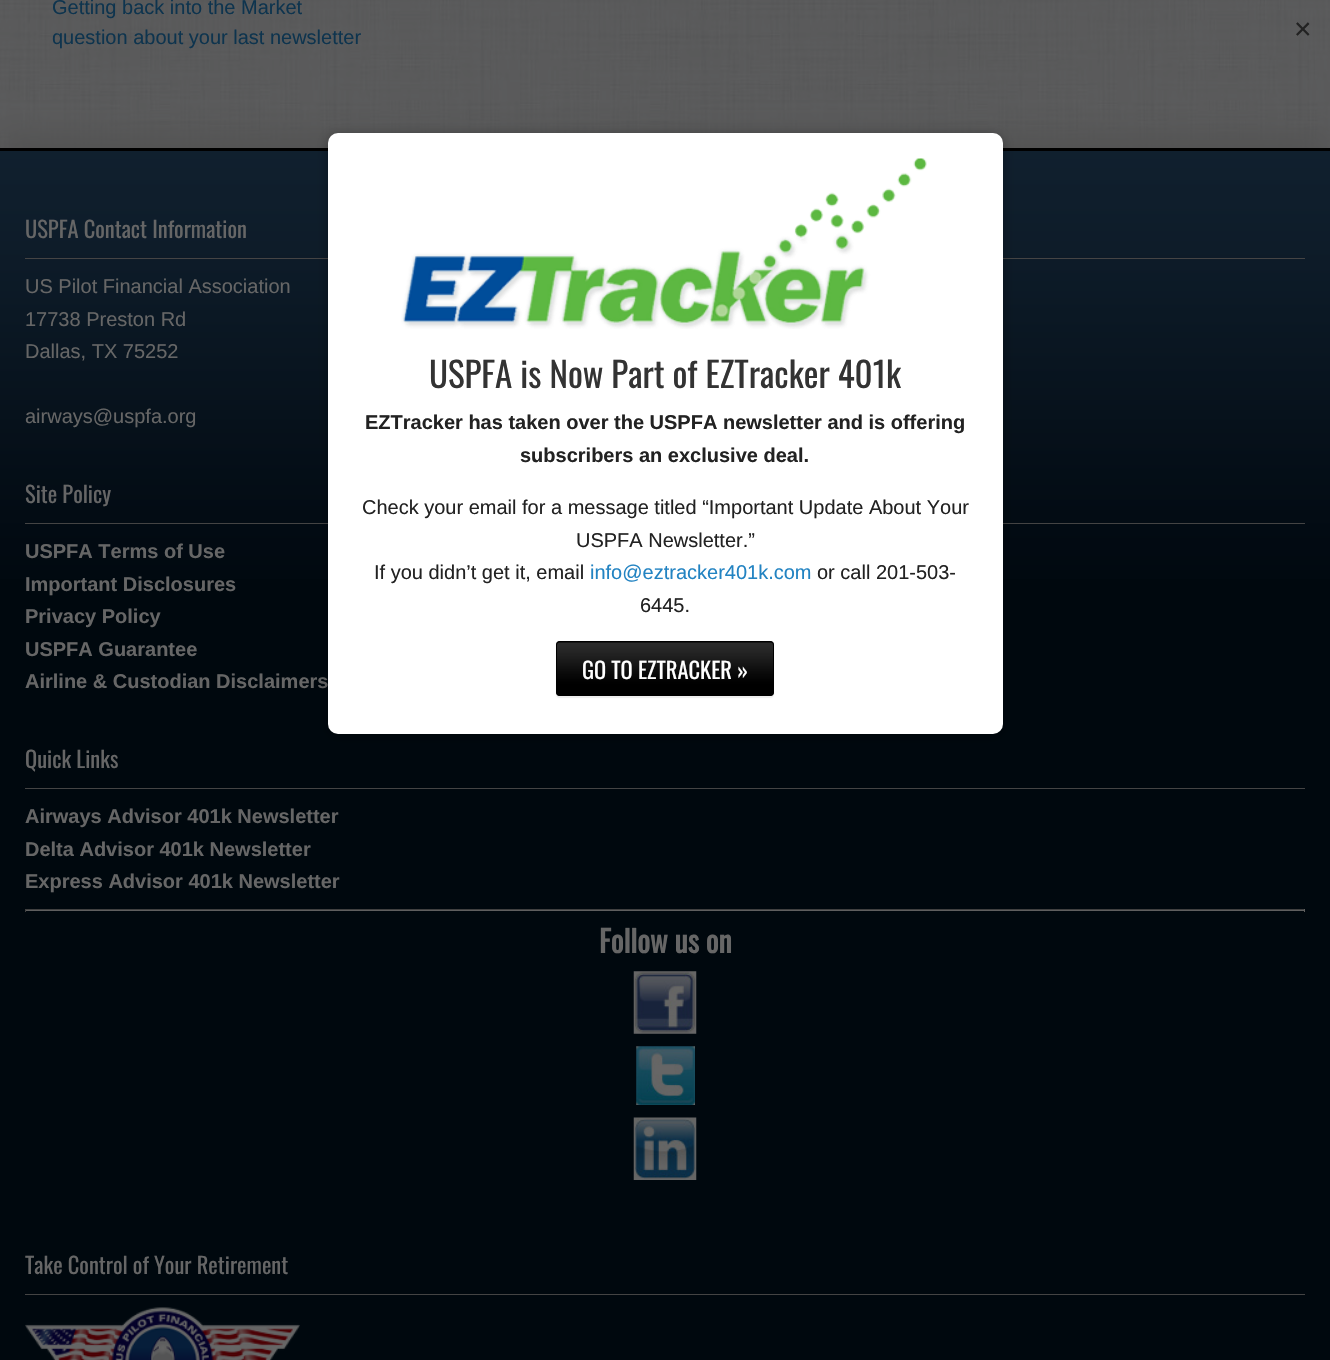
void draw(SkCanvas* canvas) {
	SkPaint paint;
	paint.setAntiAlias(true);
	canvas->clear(0xffffffff);
	canvas->drawImageRect(SkImages::DeferredFromEncodedData(SkData::MakeFromFileName("img1.png")), SkRect::MakeXYWH(0, 0, 1330, 148), SkSamplingOptions());
	SkFont f1(fontMgr->matchFamilyStyle("Liberation Sans", SkFontStyle::Normal()), 20);
	f1.setSubpixel(true);
	paint.setColor(0xff0e344e);
	canvas->drawString("Getting back into the Market", 52, 14, f1, paint);
	canvas->drawString("question about your last newsletter", 52, 44, f1, paint);
	paint.setColor(0xff525252);
	paint.setMaskFilter(SkMaskFilter::MakeBlur(kNormal_SkBlurStyle, 15.5));
	canvas->drawRect(SkRect::MakeXYWH(0, 135, 1330, 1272), paint);
	paint.setMaskFilter(nullptr);
	paint.setColor(0xff00080e);
	canvas->drawRect(SkRect::MakeXYWH(0, 579, 1330, 781), paint);
	canvas->drawImageRect(SkImages::DeferredFromEncodedData(SkData::MakeFromFileName("img2.png")), SkRect::MakeXYWH(0, 151, 1330, 428), SkSamplingOptions());
	paint.setColor(0xff000000);
	canvas->drawRect(SkRect::MakeXYWH(0, 148, 1330, 3), paint);
	paint.setColor(0xff444444);
	canvas->drawRect(SkRect::MakeXYWH(25, 258, 1280, 1), paint);
	SkFont f2(fontMgr->matchFamilyStyle("Oswald", SkFontStyle::Normal()), 22.5);
	f2.setSubpixel(true);
	paint.setColor(0xff666666);
	canvas->drawString("USPFA Contact Information", 25, 238, f2, paint);
	canvas->drawString("US Pilot Financial Association", 25, 293, f1, paint);
	canvas->drawString("17738 Preston Rd", 25, 326, f1, paint);
	canvas->drawString("Dallas, TX 75252", 25, 358, f1, paint);
	canvas->drawString("airways@uspfa.org", 25, 423, f1, paint);
	paint.setColor(0xff444444);
	canvas->drawRect(SkRect::MakeXYWH(25, 523, 1280, 1), paint);
	paint.setColor(0xff666666);
	canvas->drawString("Site Policy", 25, 503, f2, paint);
	SkFont f3(fontMgr->matchFamilyStyle("Liberation Sans", SkFontStyle::Bold()), 20);
	f3.setSubpixel(true);
	canvas->drawString("USPFA Terms of Use", 25, 558, f3, paint);
	canvas->drawString("Important Disclosures", 25, 591, f3, paint);
	canvas->drawString("Privacy Policy", 25, 623, f3, paint);
	canvas->drawString("USPFA Guarantee", 25, 656, f3, paint);
	canvas->drawString("Airline & Custodian Disclaimers", 25, 688, f3, paint);
	paint.setColor(0xff444444);
	canvas->drawRect(SkRect::MakeXYWH(25, 788, 1280, 1), paint);
	paint.setColor(0xff666666);
	canvas->drawString("Quick Links", 25, 768, f2, paint);
	canvas->drawString("Airways Advisor 401k Newsletter", 25, 823, f3, paint);
	canvas->drawString("Delta Advisor 401k Newsletter", 25, 856, f3, paint);
	canvas->drawString("Express Advisor 401k Newsletter", 25, 888, f3, paint);
	paint.setColor(0xff404040);
	canvas->drawRect(SkRect::MakeXYWH(25, 909, 1280, 1), paint);
	paint.setColor(0xff5f5f5f);
	canvas->drawRect(SkRect::MakeXYWH(1304, 909, 1, 3), paint);
	canvas->drawRect(SkRect::MakeXYWH(25, 910, 1280, 1), paint);
	paint.setColor(0xff404040);
	canvas->drawRect(SkRect::MakeXYWH(25, 909, 1, 3), paint);
	SkFont f4(fontMgr->matchFamilyStyle("Oswald", SkFontStyle::Bold()), 30);
	f4.setSubpixel(true);
	paint.setColor(0xff666666);
	canvas->drawString("Follow us on", 599, 953, f4, paint);
	canvas->drawImageRect(SkImages::DeferredFromEncodedData(SkData::MakeFromFileName("img3.png")), SkRect::MakeXYWH(633, 971, 64, 63), SkSamplingOptions());
	canvas->drawImageRect(SkImages::DeferredFromEncodedData(SkData::MakeFromFileName("img4.png")), SkRect::MakeXYWH(636, 1046, 59, 59), SkSamplingOptions());
	canvas->drawImageRect(SkImages::DeferredFromEncodedData(SkData::MakeFromFileName("img5.png")), SkRect::MakeXYWH(633, 1117, 64, 63), SkSamplingOptions());
	paint.setColor(0xff444444);
	canvas->drawRect(SkRect::MakeXYWH(25, 1294, 1280, 1), paint);
	paint.setColor(0xff666666);
	canvas->drawString("Take Control of Your Retirement", 25, 1274, f2, paint);
	canvas->drawImageRect(SkImages::DeferredFromEncodedData(SkData::MakeFromFileName("img6.png")), SkRect::MakeXYWH(25, 1307, 275, 53), SkSamplingOptions());
	paint.setColor(0x4d000000);
	paint.setMaskFilter(SkMaskFilter::MakeBlur(kNormal_SkBlurStyle, 6));
	canvas->drawRoundRect(SkRect::MakeXYWH(328, 135, 675, 601), 10, 10, paint);
	paint.setMaskFilter(nullptr);
	paint.setColor(0xffffffff);
	canvas->drawRoundRect(SkRect::MakeXYWH(328, 133, 675, 601), 10, 10, paint);
	SkFont f5(fontMgr->matchFamilyStyle("Liberation Sans", SkFontStyle::Normal()), 30);
	f5.setSubpixel(true);
	paint.setColor(0xff222222);
	canvas->drawString("×", 1294, 39, f5, paint);
	canvas->drawImageRect(SkImages::DeferredFromEncodedData(SkData::MakeFromFileName("img7.png")), SkRect::MakeXYWH(401, 158, 526, 171), SkSamplingOptions());
	SkFont f6(fontMgr->matchFamilyStyle("Oswald", SkFontStyle::Normal()), 35);
	f6.setSubpixel(true);
	paint.setColor(0xff333333);
	canvas->drawString("USPFA is Now Part of EZTracker 401k", 429, 388, f6, paint);
	paint.setColor(0xff222222);
	canvas->drawString("EZTracker has taken over the USPFA newsletter and is offering", 365, 429, f3, paint);
	canvas->drawString("subscribers an exclusive deal.", 520, 462, f3, paint);
	canvas->drawString("Check your email for a message titled “Important Update About Your", 362, 514, f1, paint);
	canvas->drawString("USPFA Newsletter.”", 576, 547, f1, paint);
	canvas->drawString("If you didn’t get it, email", 374, 579, f1, paint);
	paint.setColor(0xff2283c2);
	canvas->drawString("info@eztracker401k.com", 590, 579, f1, paint);
	paint.setColor(0xff222222);
	canvas->drawString("or call 201-503-", 817, 579, f1, paint);
	canvas->drawString("6445.", 640, 612, f1, paint);
	paint.setColor(0xffeeeeee);
	paint.setMaskFilter(SkMaskFilter::MakeBlur(kNormal_SkBlurStyle, 0.5));
	canvas->drawRoundRect(SkRect::MakeXYWH(556, 643, 218, 55), 4, 4, paint);
	paint.setMaskFilter(nullptr);
	paint.setColor(0xff000000);
	canvas->drawRoundRect(SkRect::MakeXYWH(556, 641, 218, 55), 4, 4, paint);
	canvas->drawImageRect(SkImages::DeferredFromEncodedData(SkData::MakeFromFileName("img8.png")), SkRect::MakeXYWH(556, 641, 218, 55), SkSamplingOptions());
	paint.setStroke(true);
	paint.setStrokeWidth(1);
	canvas->drawRoundRect(SkRect::MakeXYWH(556.5, 641.5, 217, 54), 3.5, 3.5, paint);
	paint.setStroke(false);
	paint.setColor(0xffffffff);
	canvas->drawString("GO TO EZTRACKER »", 582, 679, f2, paint);
}
